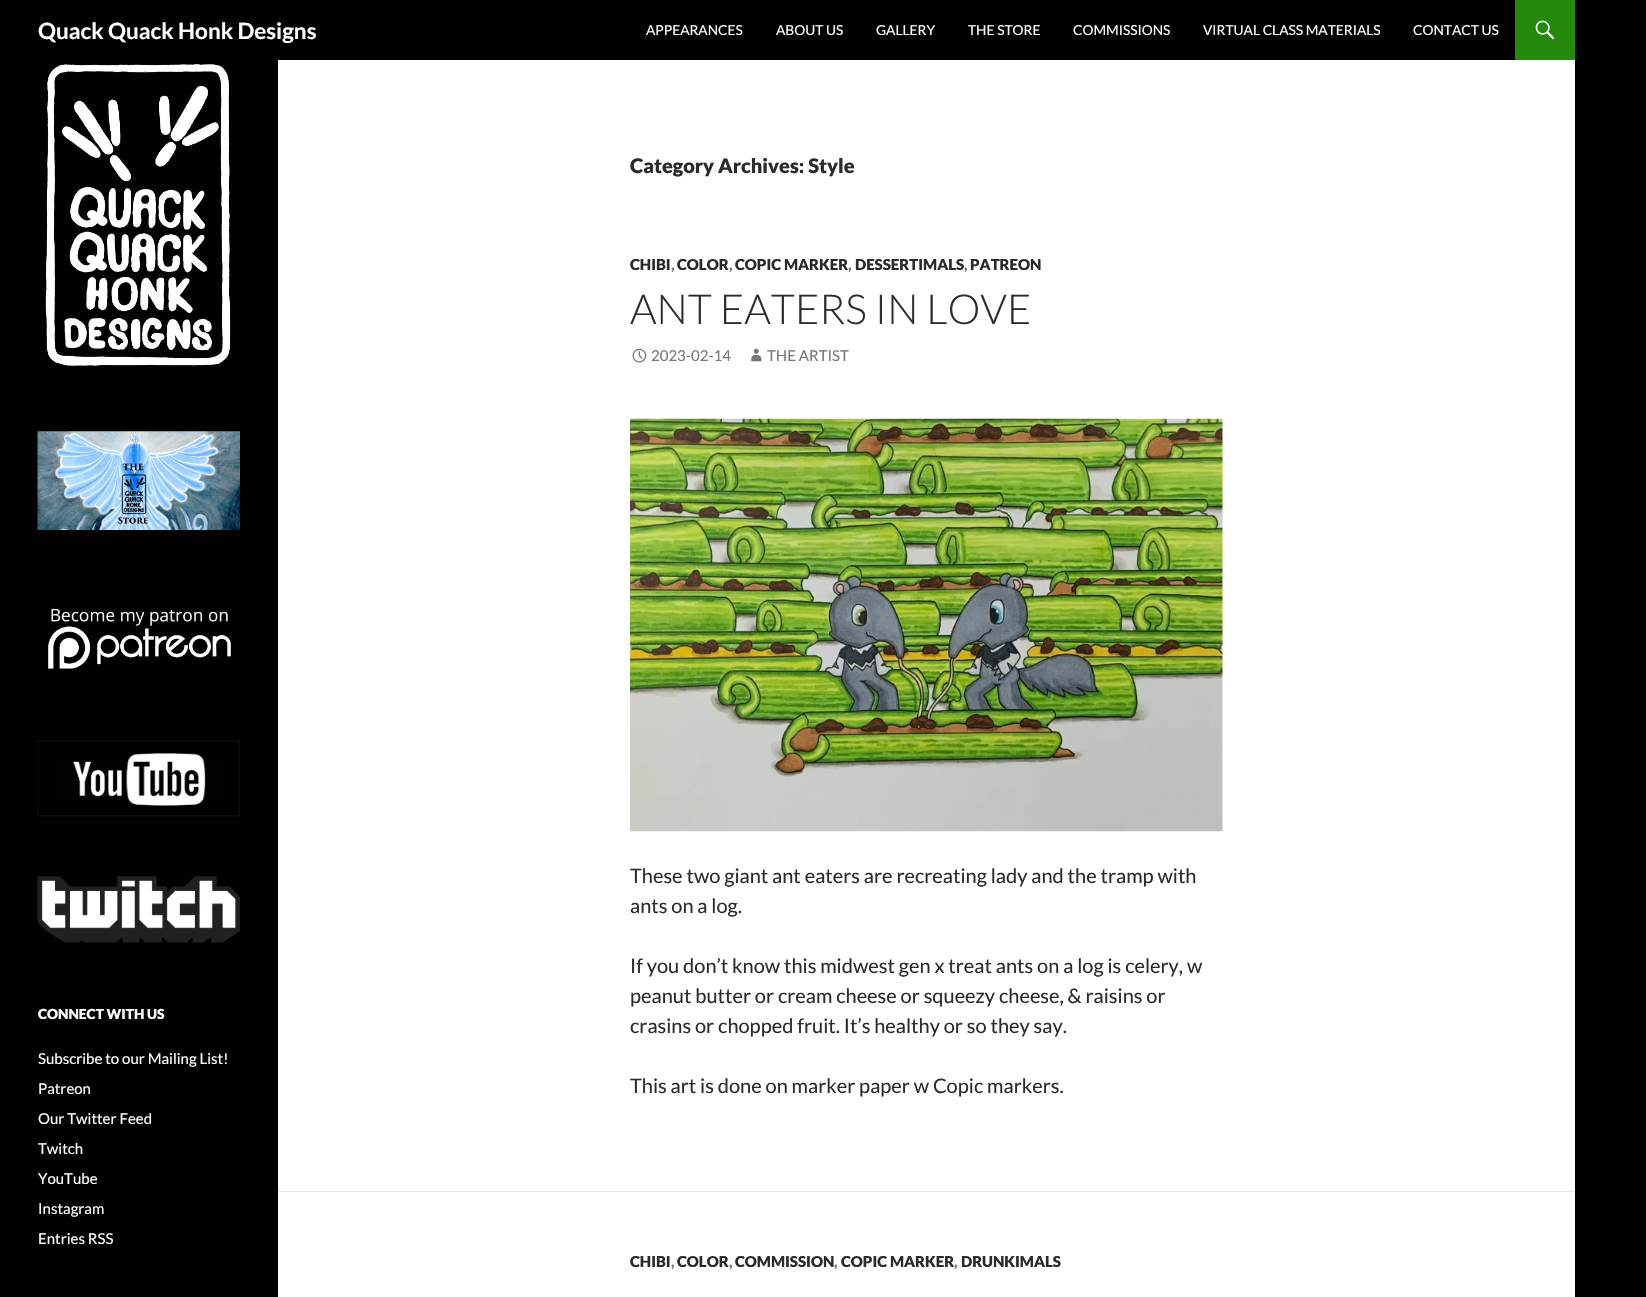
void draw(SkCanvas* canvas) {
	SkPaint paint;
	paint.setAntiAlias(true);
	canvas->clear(0xff020000);
	paint.setColor(0xffffffff);
	canvas->drawRect(SkRect::MakeXYWH(278, 60, 1297, 1237), paint);
	SkFont f1(fontMgr->matchFamilyStyle("Lato", SkFontStyle::Bold()), 22.5);
	f1.setSubpixel(true);
	canvas->drawString("Quack Quack Honk Designs", 38, 39, f1, paint);
	SkFont f2(fontMgr->matchFamilyStyle("Lato", SkFontStyle::Normal()), 13.75);
	f2.setSubpixel(true);
	canvas->drawString("APPEARANCES", 646, 35, f2, paint);
	canvas->drawString("ABOUT US", 776, 35, f2, paint);
	canvas->drawString("GALLERY", 876, 35, f2, paint);
	canvas->drawString("THE STORE", 968, 35, f2, paint);
	canvas->drawString("COMMISSIONS", 1073, 35, f2, paint);
	canvas->drawString("VIRTUAL CLASS MATERIALS", 1203, 35, f2, paint);
	canvas->drawString("CONTACT US", 1413, 35, f2, paint);
	paint.setColor(0xff24890d);
	canvas->drawRect(SkRect::MakeXYWH(1515, 0, 60, 60), paint);
	canvas->drawImageRect(SkImages::DeferredFromEncodedData(SkData::MakeFromFileName("img1.png")), SkRect::MakeXYWH(1535, 20, 20, 20), SkSamplingOptions());
	canvas->drawImageRect(SkImages::DeferredFromEncodedData(SkData::MakeFromFileName("img2.png")), SkRect::MakeXYWH(42, 64, 189, 302), SkSamplingOptions());
	canvas->drawImageRect(SkImages::DeferredFromEncodedData(SkData::MakeFromFileName("img3.png")), SkRect::MakeXYWH(37, 431, 203, 99), SkSamplingOptions());
	canvas->drawImageRect(SkImages::DeferredFromEncodedData(SkData::MakeFromFileName("img4.png")), SkRect::MakeXYWH(48, 608, 183, 61), SkSamplingOptions());
	canvas->drawImageRect(SkImages::DeferredFromEncodedData(SkData::MakeFromFileName("img5.png")), SkRect::MakeXYWH(37, 740, 203, 77), SkSamplingOptions());
	canvas->drawImageRect(SkImages::DeferredFromEncodedData(SkData::MakeFromFileName("img6.png")), SkRect::MakeXYWH(37, 876, 203, 67), SkSamplingOptions());
	SkFont f3(fontMgr->matchFamilyStyle("Lato", SkFontStyle(900, SkFontStyle::kNormal_Width, SkFontStyle::kUpright_Slant)), 13.75);
	f3.setSubpixel(true);
	paint.setColor(0xffffffff);
	canvas->drawString("CONNECT WITH US", 38, 1019, f3, paint);
	SkFont f4(fontMgr->matchFamilyStyle("Lato", SkFontStyle::Normal()), 15);
	f4.setSubpixel(true);
	canvas->drawString("Subscribe to our Mailing List!", 38, 1064, f4, paint);
	canvas->drawString("Patreon", 38, 1094, f4, paint);
	canvas->drawString("Our Twitter Feed", 38, 1124, f4, paint);
	canvas->drawString("Twitch", 38, 1154, f4, paint);
	canvas->drawString("YouTube", 38, 1184, f4, paint);
	canvas->drawString("Instagram", 38, 1214, f4, paint);
	canvas->drawString("Entries RSS", 38, 1244, f4, paint);
	SkFont f5(fontMgr->matchFamilyStyle("Lato", SkFontStyle(900, SkFontStyle::kNormal_Width, SkFontStyle::kUpright_Slant)), 20);
	f5.setSubpixel(true);
	paint.setColor(0xff2b2b2b);
	canvas->drawString("Category Archives: Style", 630, 173, f5, paint);
	SkFont f6(fontMgr->matchFamilyStyle("Lato", SkFontStyle(900, SkFontStyle::kNormal_Width, SkFontStyle::kUpright_Slant)), 15);
	f6.setSubpixel(true);
	canvas->drawString("CHIBI", 630, 270, f6, paint);
	paint.setColor(0xff767676);
	canvas->drawString(",", 671, 270, f6, paint);
	paint.setColor(0xff2b2b2b);
	canvas->drawString("COLOR", 677, 270, f6, paint);
	paint.setColor(0xff767676);
	canvas->drawString(",", 729, 270, f6, paint);
	paint.setColor(0xff2b2b2b);
	canvas->drawString("COPIC MARKER", 735, 270, f6, paint);
	paint.setColor(0xff767676);
	canvas->drawString(",", 848, 270, f6, paint);
	paint.setColor(0xff2b2b2b);
	canvas->drawString("DESSERTIMALS", 855, 270, f6, paint);
	paint.setColor(0xff767676);
	canvas->drawString(",", 964, 270, f6, paint);
	paint.setColor(0xff2b2b2b);
	canvas->drawString("PATREON", 970, 270, f6, paint);
	SkFont f7(fontMgr->matchFamilyStyle("Lato", SkFontStyle(300, SkFontStyle::kNormal_Width, SkFontStyle::kUpright_Slant)), 41.25);
	f7.setSubpixel(true);
	canvas->drawString("ANT EATERS IN LOVE", 630, 324, f7, paint);
	canvas->drawImageRect(SkImages::DeferredFromEncodedData(SkData::MakeFromFileName("img7.png")), SkRect::MakeXYWH(632, 348, 15, 15), SkSamplingOptions());
	paint.setColor(0xff767676);
	canvas->drawString("2023-02-14", 651, 361, f4, paint);
	canvas->drawImageRect(SkImages::DeferredFromEncodedData(SkData::MakeFromFileName("img8.png")), SkRect::MakeXYWH(751, 348, 11, 14), SkSamplingOptions());
	canvas->drawString("THE ARTIST", 767, 361, f4, paint);
	canvas->drawImageRect(SkImages::DeferredFromEncodedData(SkData::MakeFromFileName("img9.png")), SkRect::MakeXYWH(630, 418, 593, 414), SkSamplingOptions());
	SkFont f8(fontMgr->matchFamilyStyle("Lato", SkFontStyle::Normal()), 20);
	f8.setSubpixel(true);
	paint.setColor(0xff2b2b2b);
	canvas->drawString("These two giant ant eaters are recreating lady and the tramp with", 630, 883, f8, paint);
	canvas->drawString("ants on a log.", 630, 913, f8, paint);
	canvas->drawString("If you don’t know this midwest gen x treat ants on a log is celery, w", 630, 973, f8, paint);
	canvas->drawString("peanut butter or cream cheese or squeezy cheese, & raisins or", 630, 1003, f8, paint);
	canvas->drawString("crasins or chopped fruit. It’s healthy or so they say.", 630, 1033, f8, paint);
	canvas->drawString("This art is done on marker paper w Copic markers.", 630, 1093, f8, paint);
	paint.setColor(0xffe6e6e6);
	canvas->drawRect(SkRect::MakeXYWH(278, 1191, 1297, 1), paint);
	paint.setColor(0xff2b2b2b);
	canvas->drawString("CHIBI", 630, 1267, f6, paint);
	paint.setColor(0xff767676);
	canvas->drawString(",", 671, 1267, f6, paint);
	paint.setColor(0xff2b2b2b);
	canvas->drawString("COLOR", 677, 1267, f6, paint);
	paint.setColor(0xff767676);
	canvas->drawString(",", 729, 1267, f6, paint);
	paint.setColor(0xff2b2b2b);
	canvas->drawString("COMMISSION", 735, 1267, f6, paint);
	paint.setColor(0xff767676);
	canvas->drawString(",", 834, 1267, f6, paint);
	paint.setColor(0xff2b2b2b);
	canvas->drawString("COPIC MARKER", 841, 1267, f6, paint);
	paint.setColor(0xff767676);
	canvas->drawString(",", 954, 1267, f6, paint);
	paint.setColor(0xff2b2b2b);
	canvas->drawString("DRUNKIMALS", 961, 1267, f6, paint);
}
